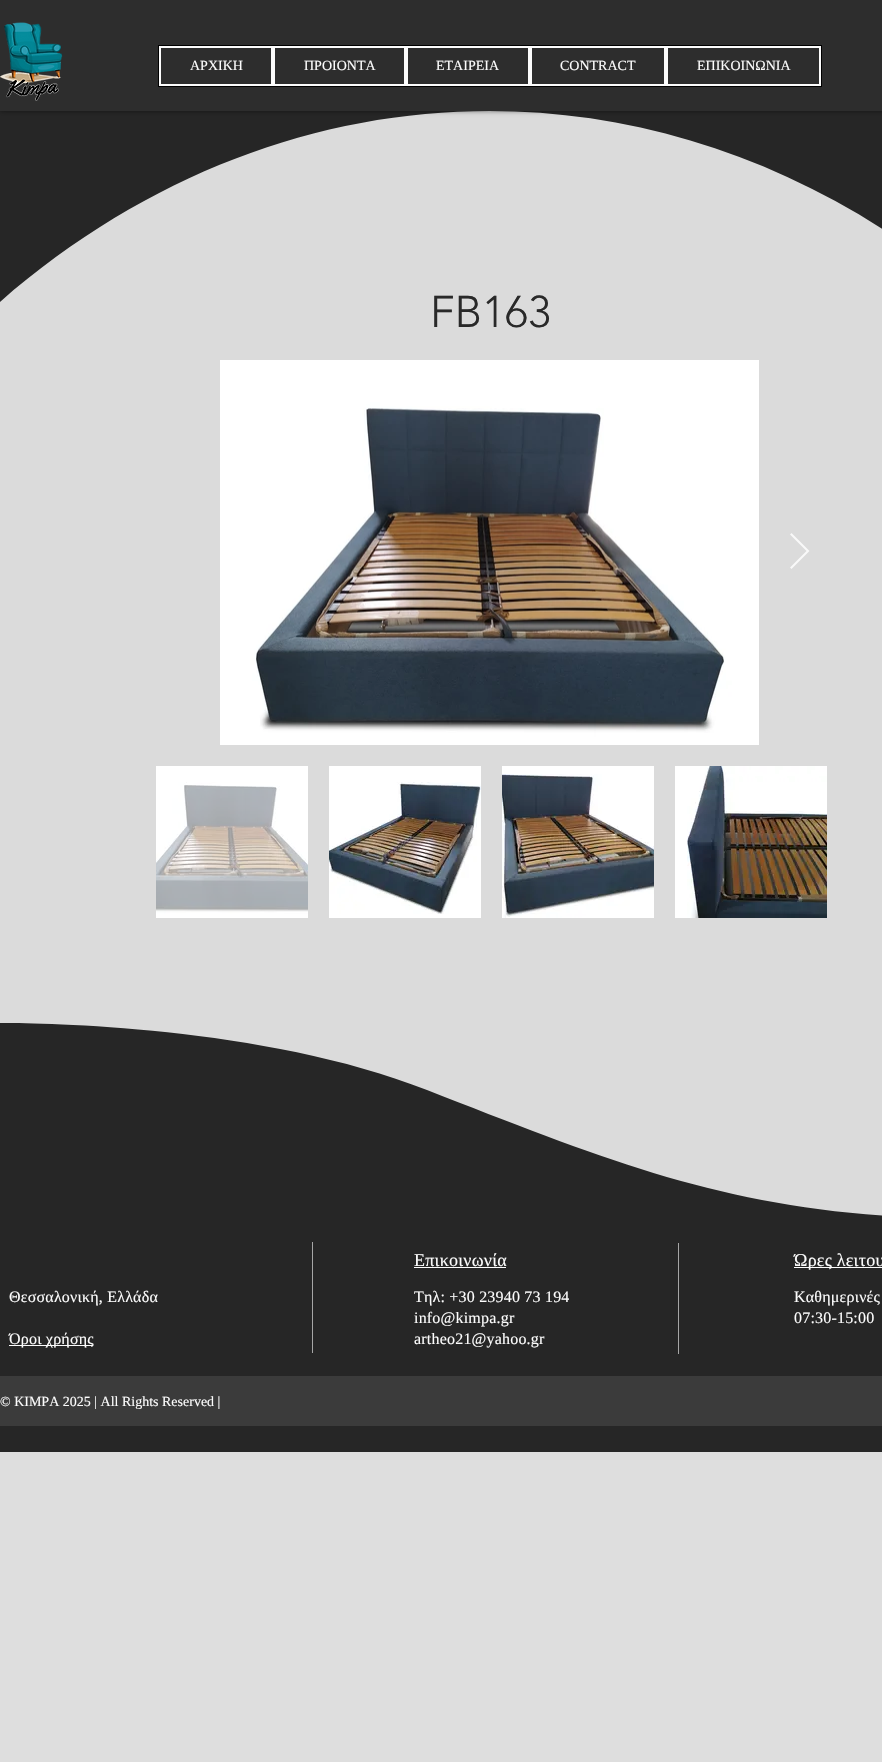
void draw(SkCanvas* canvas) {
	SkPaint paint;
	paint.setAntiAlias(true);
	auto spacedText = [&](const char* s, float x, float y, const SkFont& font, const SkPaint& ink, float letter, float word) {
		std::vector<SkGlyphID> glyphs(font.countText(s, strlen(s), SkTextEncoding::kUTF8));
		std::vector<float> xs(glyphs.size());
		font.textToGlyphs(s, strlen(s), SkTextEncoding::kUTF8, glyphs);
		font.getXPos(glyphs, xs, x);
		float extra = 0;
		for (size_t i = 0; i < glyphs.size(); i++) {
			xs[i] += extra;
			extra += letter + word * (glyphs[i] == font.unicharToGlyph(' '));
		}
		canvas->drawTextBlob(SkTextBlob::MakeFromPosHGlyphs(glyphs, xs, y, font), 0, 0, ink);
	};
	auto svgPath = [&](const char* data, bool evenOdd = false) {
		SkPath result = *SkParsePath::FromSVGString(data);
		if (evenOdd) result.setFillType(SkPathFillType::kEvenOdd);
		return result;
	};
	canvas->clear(0xffdedede);
	paint.setColor(0xffdbdbdb);
	canvas->drawRect(SkRect::MakeXYWH(0, 111, 882, 1105), paint);
	paint.setColor(0xff262626);
	canvas->drawPath(svgPath("M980 302C687 48 293 47 0 302V311H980ZM0 110H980V311H0Z", true), paint);
	paint.setColor(0x80000000);
	paint.setMaskFilter(SkMaskFilter::MakeBlur(kNormal_SkBlurStyle, 2.5));
	canvas->drawRect(SkRect::MakeXYWH(0, 0, 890, 111), paint);
	paint.setMaskFilter(nullptr);
	paint.setColor(0xff2d2d2d);
	canvas->drawRect(SkRect::MakeXYWH(0, 0, 882, 111), paint);
	canvas->drawImageRect(SkImages::DeferredFromEncodedData(SkData::MakeFromFileName("img1.png")), SkRect::MakeXYWH(0, 22, 63, 79), SkSamplingOptions());
	paint.setStroke(true);
	paint.setStrokeWidth(1);
	paint.setColor(0xff000000);
	canvas->drawRect(SkRect::MakeXYWH(158.5, 45.5, 663, 41), paint);
	paint.setStrokeWidth(2);
	paint.setColor(0xfffcfcfc);
	canvas->drawRect(SkRect::MakeXYWH(160, 47, 112, 38), paint);
	SkFont f1(fontMgr->matchFamilyStyle("Liberation Serif", SkFontStyle::Normal()), 14);
	f1.setSubpixel(true);
	paint.setStroke(false);
	canvas->drawString("ΑΡΧΙΚΗ", 190, 70, f1, paint);
	paint.setStroke(true);
	canvas->drawRect(SkRect::MakeXYWH(274, 47, 131, 38), paint);
	paint.setStroke(false);
	canvas->drawString("ΠΡΟΙΟΝΤΑ", 304, 70, f1, paint);
	paint.setStroke(true);
	canvas->drawRect(SkRect::MakeXYWH(407, 47, 122, 38), paint);
	paint.setStroke(false);
	canvas->drawString("ΕΤΑΙΡΕΙΑ", 436, 70, f1, paint);
	paint.setStroke(true);
	canvas->drawRect(SkRect::MakeXYWH(531, 47, 134, 38), paint);
	paint.setStroke(false);
	canvas->drawString("CONTRACT", 560, 70, f1, paint);
	paint.setStroke(true);
	canvas->drawRect(SkRect::MakeXYWH(667, 47, 153, 38), paint);
	paint.setStroke(false);
	canvas->drawString("ΕΠΙΚΟΙΝΩΝΙΑ", 697, 70, f1, paint);
	SkFont f2(fontMgr->matchFamilyStyle("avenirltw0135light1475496", SkFontStyle(300, SkFontStyle::kNormal_Width, SkFontStyle::kUpright_Slant)), 44);
	f2.setSubpixel(true);
	paint.setColor(0xff292929);
	canvas->drawString("FB163", 430, 327, f2, paint);
	canvas->drawImageRect(SkImages::DeferredFromEncodedData(SkData::MakeFromFileName("img2.png")), SkRect::MakeXYWH(220, 360, 539, 385), SkSamplingOptions());
	paint.setColor(0xfff9f9f9);
	canvas->drawPath(svgPath("M790 534.5L791.5 533L809.5 551L791.5 569L790 567.5L806.5 551Z"), paint);
	paint.setColor(0xffffffff);
	canvas->drawRect(SkRect::MakeXYWH(156, 766, 152, 152), paint);
	canvas->drawImageRect(SkImages::DeferredFromEncodedData(SkData::MakeFromFileName("img3.png")), SkRect::MakeXYWH(156, 782, 152, 132), SkSamplingOptions());
	canvas->drawRect(SkRect::MakeXYWH(329, 766, 152, 152), paint);
	canvas->drawImageRect(SkImages::DeferredFromEncodedData(SkData::MakeFromFileName("img4.png")), SkRect::MakeXYWH(329, 782, 152, 132), SkSamplingOptions());
	canvas->drawRect(SkRect::MakeXYWH(502, 766, 152, 8), paint);
	canvas->drawImageRect(SkImages::DeferredFromEncodedData(SkData::MakeFromFileName("img5.png")), SkRect::MakeXYWH(502, 774, 152, 144), SkSamplingOptions());
	canvas->drawRect(SkRect::MakeXYWH(675, 766, 12, 152), paint);
	canvas->drawImageRect(SkImages::DeferredFromEncodedData(SkData::MakeFromFileName("img6.png")), SkRect::MakeXYWH(687, 766, 140, 152), SkSamplingOptions());
	paint.setColor(0xff262626);
	canvas->drawPath(svgPath("M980 1223V1219C748 1219 627 1168 427 1090C250 1020 0 1023 0 1023V1223Z"), paint);
	canvas->drawRect(SkRect::MakeXYWH(0, 1223, 882, 229), paint);
	paint.setColor(0xffa6a6a6);
	canvas->drawRect(SkRect::MakeXYWH(312, 1242, 1, 111), paint);
	SkFont f3(fontMgr->matchFamilyStyle("Liberation Serif", SkFontStyle::Normal()), 18);
	f3.setSubpixel(true);
	paint.setColor(0xfffcfcfc);
	spacedText("Επικοινωνία", 414, 1266, f3, paint, 0.25, 0);
	canvas->drawRect(SkRect::MakeXYWH(414, 1267, 92, 1), paint);
	paint.setColor(0xffa6a6a6);
	canvas->drawRect(SkRect::MakeXYWH(678, 1243, 1, 111), paint);
	paint.setColor(0xfffcfcfc);
	canvas->drawRect(SkRect::MakeXYWH(794, 1267, 88, 1), paint);
	spacedText("Ώρες λειτου", 794, 1266, f3, paint, 0.25, 0);
	SkFont f4(fontMgr->matchFamilyStyle("Liberation Serif", SkFontStyle::Normal()), 16);
	f4.setSubpixel(true);
	spacedText("Θεσσαλονική, Ελλάδα", 9, 1302, f4, paint, 0.2, 0);
	spacedText("Τηλ: +30 23940 73 194", 414, 1302, f4, paint, 0.2, 0);
	spacedText("info@kimpa.gr", 414, 1323, f4, paint, 0.2, 0);
	spacedText("artheo21@yahoo.gr", 414, 1344, f4, paint, 0.2, 0);
	spacedText("Καθημερινές", 794, 1302, f4, paint, 0.2, 0);
	spacedText("07:30-15:00", 794, 1323, f4, paint, 0.2, 0);
	canvas->drawRect(SkRect::MakeXYWH(9, 1345, 84, 1), paint);
	spacedText("Όροι χρήσης", 9, 1344, f4, paint, 0.2, 0);
	paint.setColor(0xff3b3b3b);
	canvas->drawRect(SkRect::MakeXYWH(0, 1376, 882, 50), paint);
	paint.setColor(0xfffcfcfc);
	canvas->drawString("© KIMPA 2025 | All Rights Reserved |", 0, 1406, f1, paint);
}
